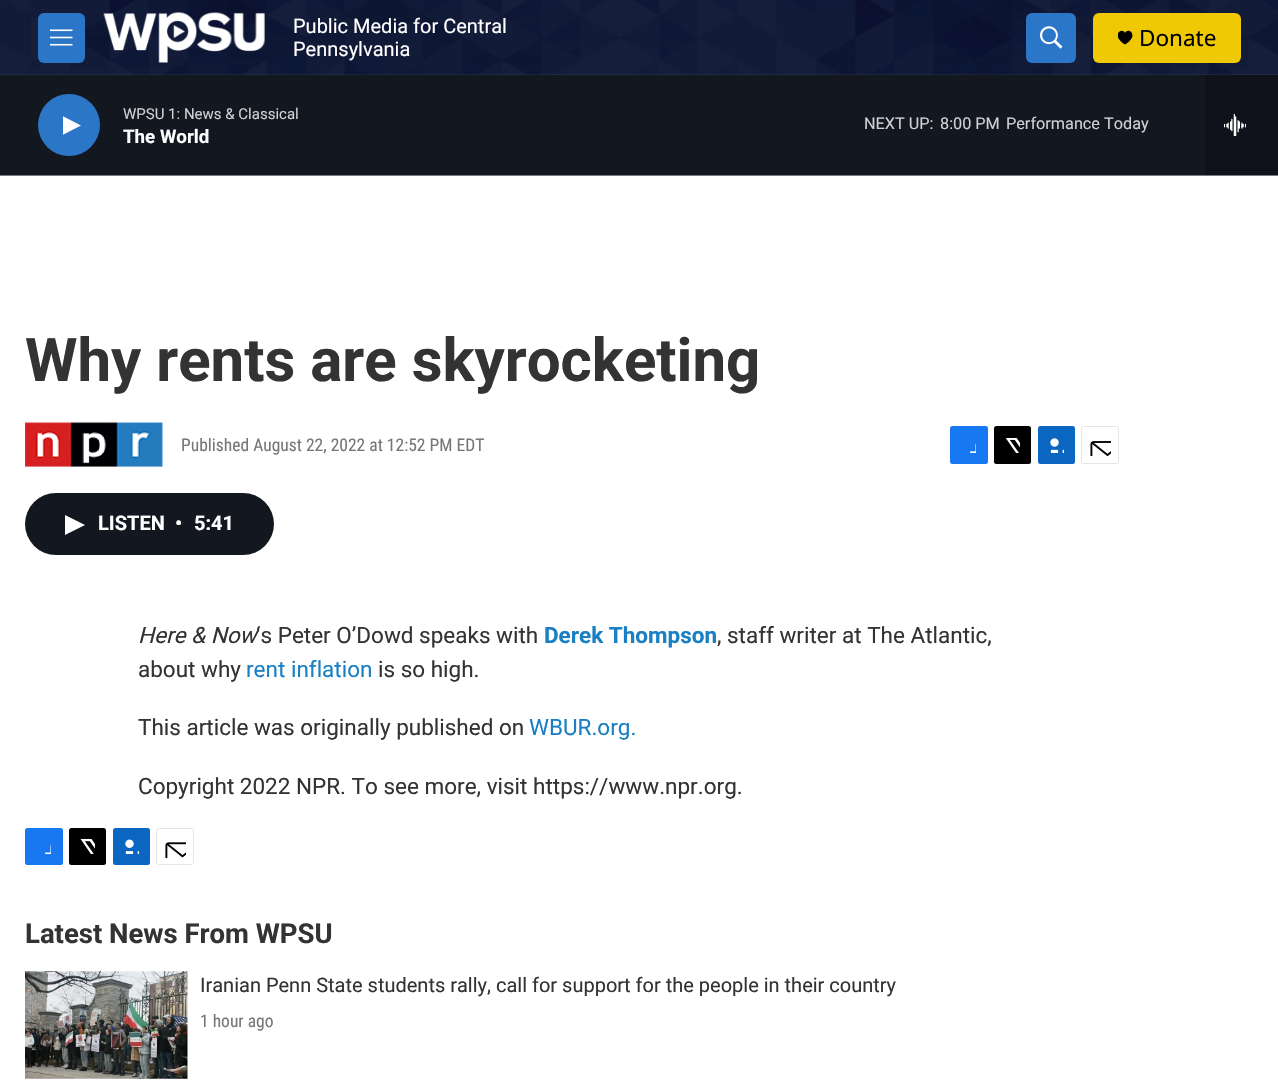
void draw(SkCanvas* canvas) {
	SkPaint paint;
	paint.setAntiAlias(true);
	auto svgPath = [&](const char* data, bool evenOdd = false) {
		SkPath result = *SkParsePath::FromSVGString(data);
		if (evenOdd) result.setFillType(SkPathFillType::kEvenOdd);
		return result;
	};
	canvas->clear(0xffffffff);
	paint.setColor(0xff7b7b7b);
	canvas->drawRect(SkRect::MakeXYWH(0, 175, 1278, 1), paint);
	canvas->drawImageRect(SkImages::DeferredFromEncodedData(SkData::MakeFromFileName("img1.png")), SkRect::MakeXYWH(0, 0, 1278, 75), SkSamplingOptions());
	paint.setColor(0xff2c76c7);
	canvas->drawRoundRect(SkRect::MakeXYWH(38, 13, 47, 50), 6, 6, paint);
	canvas->drawImageRect(SkImages::DeferredFromEncodedData(SkData::MakeFromFileName("img2.png")), SkRect::MakeXYWH(50, 29, 23, 17), SkSamplingOptions());
	canvas->drawImageRect(SkImages::DeferredFromEncodedData(SkData::MakeFromFileName("img3.png")), SkRect::MakeXYWH(103, 12, 162, 51), SkSamplingOptions());
	SkFont f1(fontMgr->matchFamilyStyle("Roboto", SkFontStyle::Normal()), 20);
	f1.setSubpixel(true);
	paint.setColor(0xffffffff);
	canvas->drawString("Public Media for Central", 293, 33, f1, paint);
	canvas->drawString("Pennsylvania", 293, 56, f1, paint);
	paint.setColor(0xff2c76c7);
	canvas->drawRoundRect(SkRect::MakeXYWH(1026, 13, 50, 50), 6, 6, paint);
	canvas->drawImageRect(SkImages::DeferredFromEncodedData(SkData::MakeFromFileName("img4.png")), SkRect::MakeXYWH(1040, 26, 23, 23), SkSamplingOptions());
	paint.setColor(0xffefc903);
	canvas->drawRoundRect(SkRect::MakeXYWH(1093, 13, 148, 50), 6, 6, paint);
	canvas->save();
	canvas->clipRect(SkRect::MakeXYWH(1118, 30, 15, 15));
	paint.setColor(0xff000000);
	canvas->drawPath(svgPath("M1125 33C1122.5 26.5 1109.5 35 1125 44.5C1140.5 35 1127.5 26.5 1125 33Z"), paint);
	canvas->restore();
	SkFont f2(fontMgr->matchFamilyStyle("Noto Sans", SkFontStyle::Normal()), 22.5);
	f2.setSubpixel(true);
	canvas->drawString("Donate", 1139, 46, f2, paint);
	paint.setColor(0xff131720);
	canvas->drawRect(SkRect::MakeXYWH(0, 75, 1205, 100), paint);
	paint.setColor(0xff2c76c7);
	canvas->drawCircle(69, 125, 31, paint);
	canvas->save();
	canvas->clipRect(SkRect::MakeXYWH(63, 114, 18, 24));
	paint.setColor(0xffffffff);
	canvas->drawPath(svgPath("M62.5 116L81 125.5L62.5 135Z"), paint);
	canvas->restore();
	SkFont f3(fontMgr->matchFamilyStyle("Roboto", SkFontStyle::Normal()), 15);
	f3.setSubpixel(true);
	paint.setColor(0xffd0d1d2);
	canvas->drawString("WPSU 1: News & Classical", 123, 119, f3, paint);
	SkFont f4(fontMgr->matchFamilyStyle("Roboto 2", SkFontStyle::Bold()), 18.75);
	f4.setSubpixel(true);
	paint.setColor(0xffffffff);
	canvas->drawString("The World", 123, 143, f4, paint);
	SkFont f5(fontMgr->matchFamilyStyle("Roboto", SkFontStyle::Normal()), 16.25);
	f5.setSubpixel(true);
	paint.setColor(0xffd0d1d2);
	canvas->drawString("NEXT UP:", 864, 129, f5, paint);
	canvas->drawString("8:00 PM", 940, 129, f5, paint);
	canvas->drawString("Performance Today", 1006, 129, f5, paint);
	paint.setColor(0xff0f121a);
	canvas->drawRect(SkRect::MakeXYWH(1205, 75, 73, 100), paint);
	canvas->drawImageRect(SkImages::DeferredFromEncodedData(SkData::MakeFromFileName("img5.png")), SkRect::MakeXYWH(1224, 114, 22, 22), SkSamplingOptions());
	SkFont f6(fontMgr->matchFamilyStyle("Roboto", SkFontStyle::Bold()), 60);
	f6.setSubpixel(true);
	paint.setColor(0xff333333);
	canvas->drawString("Why rents are skyrocketing", 25, 381, f6, paint);
	canvas->drawImageRect(SkImages::DeferredFromEncodedData(SkData::MakeFromFileName("img6.png")), SkRect::MakeXYWH(25, 422, 138, 46), SkSamplingOptions());
	SkFont f7(fontMgr->matchFamilyStyle("Roboto Condensed", SkFontStyle::Normal()), 17.5);
	f7.setSubpixel(true);
	paint.setColor(0xff767676);
	canvas->drawString("Published August 22, 2022 at 12:52 PM EDT", 181, 451, f7, paint);
	paint.setColor(0xff1778f2);
	canvas->drawRoundRect(SkRect::MakeXYWH(950, 426, 38, 38), 2.5, 2.5, paint);
	canvas->drawImageRect(SkImages::DeferredFromEncodedData(SkData::MakeFromFileName("img7.png")), SkRect::MakeXYWH(970, 443, 6, 10), SkSamplingOptions());
	paint.setColor(0xff000000);
	canvas->drawRoundRect(SkRect::MakeXYWH(994, 426, 37, 38), 2.5, 2.5, paint);
	canvas->drawImageRect(SkImages::DeferredFromEncodedData(SkData::MakeFromFileName("img8.png")), SkRect::MakeXYWH(1005, 438, 15, 15), SkSamplingOptions());
	paint.setColor(0xff0a66c1);
	canvas->drawRoundRect(SkRect::MakeXYWH(1038, 426, 37, 38), 2.5, 2.5, paint);
	canvas->drawImageRect(SkImages::DeferredFromEncodedData(SkData::MakeFromFileName("img9.png")), SkRect::MakeXYWH(1050, 438, 14, 15), SkSamplingOptions());
	paint.setStroke(true);
	paint.setStrokeWidth(1);
	paint.setColor(0xffe6e6e6);
	canvas->drawRoundRect(SkRect::MakeXYWH(1081.5, 426.5, 37, 37), 2, 2, paint);
	canvas->drawImageRect(SkImages::DeferredFromEncodedData(SkData::MakeFromFileName("img10.png")), SkRect::MakeXYWH(1090, 441, 21, 15), SkSamplingOptions());
	paint.setStroke(false);
	paint.setColor(0xff131720);
	canvas->drawRoundRect(SkRect::MakeXYWH(25, 493, 249, 62), 31, 31, paint);
	paint.setColor(0xffffffff);
	canvas->drawPath(svgPath("M65 515L85 525L65 535Z"), paint);
	SkFont f8(fontMgr->matchFamilyStyle("Roboto 2", SkFontStyle::Bold()), 20);
	f8.setSubpixel(true);
	canvas->drawString("LISTEN", 98, 530, f8, paint);
	canvas->drawString("•", 175, 530, f8, paint);
	canvas->drawString("5:41", 194, 530, f8, paint);
	SkFont f9(fontMgr->matchFamilyStyle("Roboto", SkFontStyle::Italic()), 22.5);
	f9.setSubpixel(true);
	paint.setColor(0xff333333);
	canvas->drawString("Here & Now", 138, 643, f9, paint);
	SkFont f10(fontMgr->matchFamilyStyle("Roboto", SkFontStyle::Normal()), 22.5);
	f10.setSubpixel(true);
	canvas->drawString("‘s Peter O’Dowd speaks with", 256, 643, f10, paint);
	SkFont f11(fontMgr->matchFamilyStyle("Roboto 2", SkFontStyle::Bold()), 22.5);
	f11.setSubpixel(true);
	paint.setColor(0xff1a7fc3);
	canvas->drawString("Derek Thompson", 544, 643, f11, paint);
	paint.setColor(0xff333333);
	canvas->drawString(", staff writer at The Atlantic,", 717, 643, f10, paint);
	canvas->drawString("about why", 138, 677, f10, paint);
	paint.setColor(0xff1a7fc3);
	canvas->drawString("rent inflation", 246, 677, f10, paint);
	paint.setColor(0xff333333);
	canvas->drawString("is so high.", 378, 677, f10, paint);
	canvas->drawString("This article was originally published on", 138, 735, f10, paint);
	paint.setColor(0xff1a7fc3);
	canvas->drawString("WBUR.org.", 529, 735, f10, paint);
	paint.setColor(0xff333333);
	canvas->drawString("Copyright 2022 NPR. To see more, visit https://www.npr.org.", 138, 794, f10, paint);
	paint.setColor(0xff1778f2);
	canvas->drawRoundRect(SkRect::MakeXYWH(25, 828, 38, 37), 2.5, 2.5, paint);
	canvas->drawImageRect(SkImages::DeferredFromEncodedData(SkData::MakeFromFileName("img11.png")), SkRect::MakeXYWH(45, 844, 6, 10), SkSamplingOptions());
	paint.setColor(0xff000000);
	canvas->drawRoundRect(SkRect::MakeXYWH(69, 828, 37, 37), 2.5, 2.5, paint);
	canvas->drawImageRect(SkImages::DeferredFromEncodedData(SkData::MakeFromFileName("img12.png")), SkRect::MakeXYWH(80, 839, 15, 15), SkSamplingOptions());
	paint.setColor(0xff0a66c1);
	canvas->drawRoundRect(SkRect::MakeXYWH(113, 828, 37, 37), 2.5, 2.5, paint);
	canvas->drawImageRect(SkImages::DeferredFromEncodedData(SkData::MakeFromFileName("img13.png")), SkRect::MakeXYWH(125, 839, 14, 15), SkSamplingOptions());
	paint.setStroke(true);
	paint.setColor(0xffe6e6e6);
	canvas->drawRoundRect(SkRect::MakeXYWH(156.5, 828.5, 37, 36), 2, 2, paint);
	canvas->drawImageRect(SkImages::DeferredFromEncodedData(SkData::MakeFromFileName("img14.png")), SkRect::MakeXYWH(165, 842, 21, 16), SkSamplingOptions());
	SkFont f12(fontMgr->matchFamilyStyle("Roboto", SkFontStyle::Bold()), 27.5);
	f12.setSubpixel(true);
	paint.setStroke(false);
	paint.setColor(0xff333333);
	canvas->drawString("Latest News From WPSU", 25, 943, f12, paint);
	canvas->drawImageRect(SkImages::DeferredFromEncodedData(SkData::MakeFromFileName("img15.png")), SkRect::MakeXYWH(25, 971, 163, 108), SkSamplingOptions());
	canvas->drawString("Iranian Penn State students rally, call for support for the people in their country", 200, 992, f1, paint);
	paint.setColor(0xff767676);
	canvas->drawString("1 hour ago", 200, 1027, f7, paint);
}
